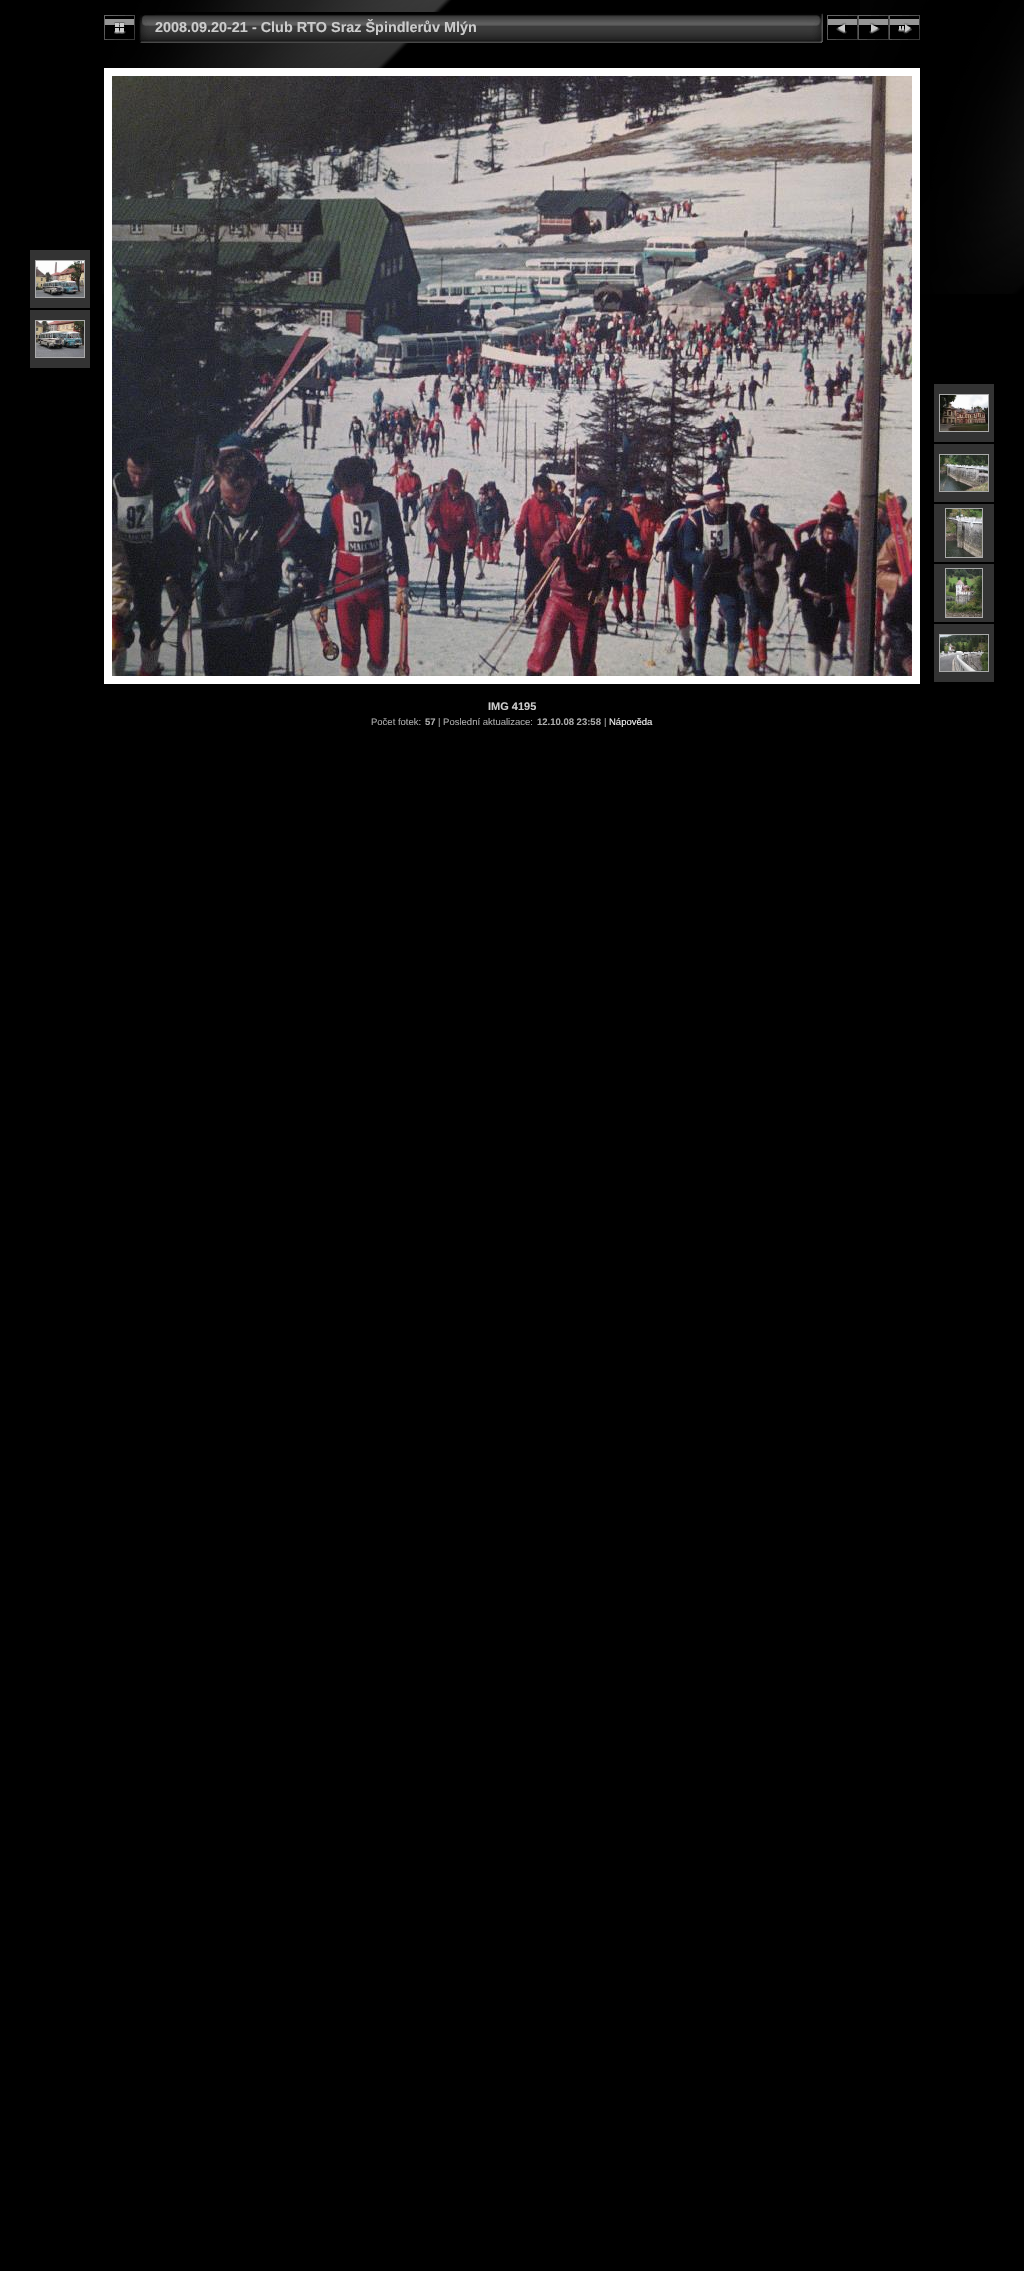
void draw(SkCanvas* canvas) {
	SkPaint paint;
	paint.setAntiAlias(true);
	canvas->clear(0xff000000);
	canvas->drawImageRect(SkImages::DeferredFromEncodedData(SkData::MakeFromFileName("img1.png")), SkRect::MakeXYWH(102, 0, 922, 294), SkSamplingOptions());
	canvas->drawImageRect(SkImages::DeferredFromEncodedData(SkData::MakeFromFileName("img2.png")), SkRect::MakeXYWH(104, 15, 31, 25), SkSamplingOptions());
	canvas->drawImageRect(SkImages::DeferredFromEncodedData(SkData::MakeFromFileName("img3.png")), SkRect::MakeXYWH(139, 15, 16, 28), SkSamplingOptions());
	canvas->drawImageRect(SkImages::DeferredFromEncodedData(SkData::MakeFromFileName("img4.png")), SkRect::MakeXYWH(155, 12, 652, 31), SkSamplingOptions());
	SkFont f1(fontMgr->matchFamilyStyle("Liberation Sans", SkFontStyle::Bold()), 14.4);
	f1.setSubpixel(true);
	paint.setColor(0xffcccccc);
	canvas->drawString("2008.09.20-21 - Club RTO Sraz Špindlerův Mlýn", 155, 32, f1, paint);
	canvas->drawImageRect(SkImages::DeferredFromEncodedData(SkData::MakeFromFileName("img5.png")), SkRect::MakeXYWH(807, 13, 16, 30), SkSamplingOptions());
	canvas->drawImageRect(SkImages::DeferredFromEncodedData(SkData::MakeFromFileName("img6.png")), SkRect::MakeXYWH(827, 15, 31, 25), SkSamplingOptions());
	canvas->drawImageRect(SkImages::DeferredFromEncodedData(SkData::MakeFromFileName("img7.png")), SkRect::MakeXYWH(858, 15, 31, 25), SkSamplingOptions());
	canvas->drawImageRect(SkImages::DeferredFromEncodedData(SkData::MakeFromFileName("img8.png")), SkRect::MakeXYWH(889, 15, 31, 25), SkSamplingOptions());
	paint.setColor(0xff333333);
	canvas->drawRect(SkRect::MakeXYWH(30, 250, 60, 58), paint);
	paint.setStroke(true);
	paint.setStrokeWidth(1);
	paint.setColor(0xffaaaaaa);
	canvas->drawRect(SkRect::MakeXYWH(35.5, 260.5, 49, 37), paint);
	canvas->drawImageRect(SkImages::DeferredFromEncodedData(SkData::MakeFromFileName("img9.png")), SkRect::MakeXYWH(36, 261, 48, 36), SkSamplingOptions());
	paint.setStroke(false);
	paint.setColor(0xff333333);
	canvas->drawRect(SkRect::MakeXYWH(30, 310, 60, 58), paint);
	paint.setStroke(true);
	paint.setColor(0xffaaaaaa);
	canvas->drawRect(SkRect::MakeXYWH(35.5, 320.5, 49, 37), paint);
	canvas->drawImageRect(SkImages::DeferredFromEncodedData(SkData::MakeFromFileName("img10.png")), SkRect::MakeXYWH(36, 321, 48, 36), SkSamplingOptions());
	paint.setStrokeWidth(8);
	paint.setColor(0xffffffff);
	canvas->drawRect(SkRect::MakeXYWH(108, 72, 808, 608), paint);
	canvas->drawImageRect(SkImages::DeferredFromEncodedData(SkData::MakeFromFileName("img11.png")), SkRect::MakeXYWH(112, 76, 800, 600), SkSamplingOptions());
	paint.setStroke(false);
	paint.setColor(0xff333333);
	canvas->drawRect(SkRect::MakeXYWH(934, 384, 60, 58), paint);
	paint.setStroke(true);
	paint.setStrokeWidth(1);
	paint.setColor(0xffaaaaaa);
	canvas->drawRect(SkRect::MakeXYWH(939.5, 394.5, 49, 37), paint);
	canvas->drawImageRect(SkImages::DeferredFromEncodedData(SkData::MakeFromFileName("img12.png")), SkRect::MakeXYWH(940, 395, 48, 36), SkSamplingOptions());
	paint.setStroke(false);
	paint.setColor(0xff333333);
	canvas->drawRect(SkRect::MakeXYWH(934, 444, 60, 58), paint);
	paint.setStroke(true);
	paint.setColor(0xffaaaaaa);
	canvas->drawRect(SkRect::MakeXYWH(939.5, 454.5, 49, 37), paint);
	canvas->drawImageRect(SkImages::DeferredFromEncodedData(SkData::MakeFromFileName("img13.png")), SkRect::MakeXYWH(940, 455, 48, 36), SkSamplingOptions());
	paint.setStroke(false);
	paint.setColor(0xff333333);
	canvas->drawRect(SkRect::MakeXYWH(934, 504, 60, 58), paint);
	paint.setStroke(true);
	paint.setColor(0xffaaaaaa);
	canvas->drawRect(SkRect::MakeXYWH(945.5, 508.5, 37, 49), paint);
	canvas->drawImageRect(SkImages::DeferredFromEncodedData(SkData::MakeFromFileName("img14.png")), SkRect::MakeXYWH(946, 509, 36, 48), SkSamplingOptions());
	paint.setStroke(false);
	paint.setColor(0xff333333);
	canvas->drawRect(SkRect::MakeXYWH(934, 564, 60, 58), paint);
	paint.setStroke(true);
	paint.setColor(0xffaaaaaa);
	canvas->drawRect(SkRect::MakeXYWH(945.5, 568.5, 37, 49), paint);
	canvas->drawImageRect(SkImages::DeferredFromEncodedData(SkData::MakeFromFileName("img15.png")), SkRect::MakeXYWH(946, 569, 36, 48), SkSamplingOptions());
	paint.setStroke(false);
	paint.setColor(0xff333333);
	canvas->drawRect(SkRect::MakeXYWH(934, 624, 60, 58), paint);
	paint.setStroke(true);
	paint.setColor(0xffaaaaaa);
	canvas->drawRect(SkRect::MakeXYWH(939.5, 634.5, 49, 37), paint);
	canvas->drawImageRect(SkImages::DeferredFromEncodedData(SkData::MakeFromFileName("img16.png")), SkRect::MakeXYWH(940, 635, 48, 36), SkSamplingOptions());
	SkFont f2(fontMgr->matchFamilyStyle("Liberation Sans", SkFontStyle::Bold()), 11);
	f2.setSubpixel(true);
	paint.setStroke(false);
	paint.setColor(0xffcccccc);
	canvas->drawString("IMG 4195", 488, 710, f2, paint);
	SkFont f3(fontMgr->matchFamilyStyle("Liberation Sans", SkFontStyle::Normal()), 9.5);
	f3.setSubpixel(true);
	paint.setColor(0xffaaaaaa);
	canvas->drawString("Počet fotek:", 371, 725, f3, paint);
	SkFont f4(fontMgr->matchFamilyStyle("Liberation Sans", SkFontStyle::Bold()), 9.5);
	f4.setSubpixel(true);
	canvas->drawString("57", 425, 725, f4, paint);
	canvas->drawString("| Poslední aktualizace:", 438, 725, f3, paint);
	canvas->drawString("12.10.08 23:58", 537, 725, f4, paint);
	canvas->drawString("|", 604, 725, f3, paint);
	paint.setColor(0xffeeeeee);
	canvas->drawString("Nápověda", 609, 725, f3, paint);
}
